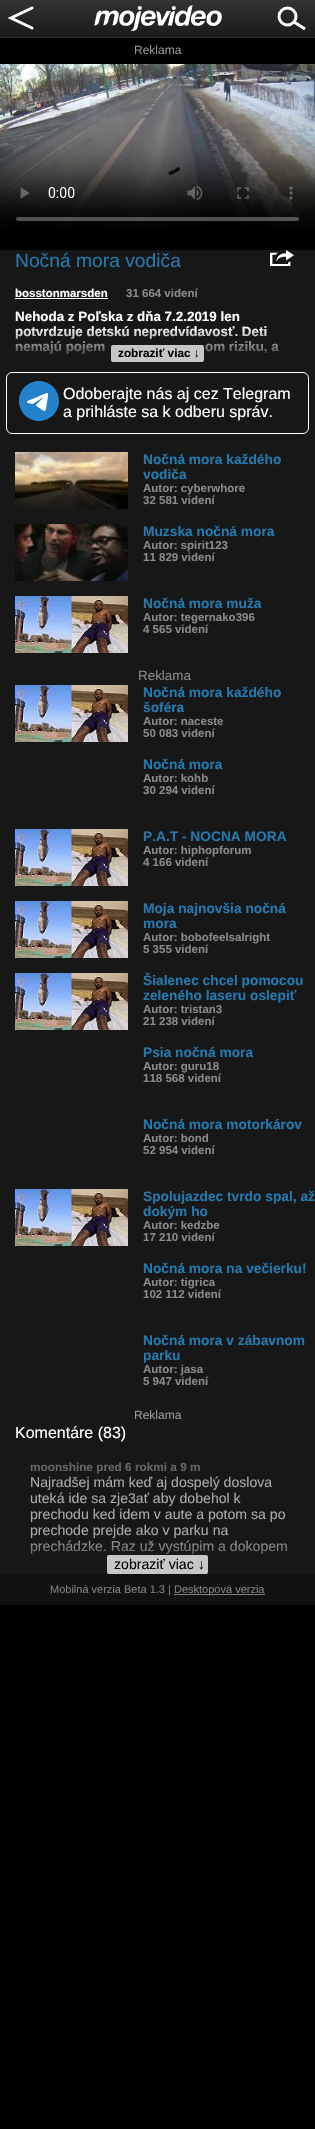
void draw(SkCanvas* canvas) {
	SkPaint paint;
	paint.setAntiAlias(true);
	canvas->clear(0xff000000);
	canvas->drawImageRect(SkImages::DeferredFromEncodedData(SkData::MakeFromFileName("img1.png")), SkRect::MakeXYWH(0, 0, 315, 38), SkSamplingOptions());
	canvas->drawImageRect(SkImages::DeferredFromEncodedData(SkData::MakeFromFileName("img2.png")), SkRect::MakeXYWH(7, 6, 27, 24), SkSamplingOptions());
	canvas->drawImageRect(SkImages::DeferredFromEncodedData(SkData::MakeFromFileName("img3.png")), SkRect::MakeXYWH(94, 5, 128, 26), SkSamplingOptions());
	canvas->drawImageRect(SkImages::DeferredFromEncodedData(SkData::MakeFromFileName("img4.png")), SkRect::MakeXYWH(277, 6, 29, 25), SkSamplingOptions());
	SkFont f1(fontMgr->matchFamilyStyle("Liberation Sans", SkFontStyle::Normal()), 12);
	f1.setSubpixel(true);
	paint.setColor(0xff999999);
	canvas->drawString("Reklama", 134, 54, f1, paint);
	canvas->drawImageRect(SkImages::DeferredFromEncodedData(SkData::MakeFromFileName("img5.png")), SkRect::MakeXYWH(0, 64, 315, 164), SkSamplingOptions());
	paint.setColor(0xff171717);
	canvas->drawRect(SkRect::MakeXYWH(0, 250, 315, 1324), paint);
	SkFont f2(fontMgr->matchFamilyStyle("Liberation Sans", SkFontStyle::Normal()), 19.25);
	f2.setSubpixel(true);
	paint.setColor(0xff2479ae);
	canvas->drawString("Nočná mora vodiča", 15, 267, f2, paint);
	canvas->drawImageRect(SkImages::DeferredFromEncodedData(SkData::MakeFromFileName("img6.png")), SkRect::MakeXYWH(270, 250, 24, 16), SkSamplingOptions());
	SkFont f3(fontMgr->matchFamilyStyle("Liberation Sans", SkFontStyle::Bold()), 11.5);
	f3.setSubpixel(true);
	paint.setColor(0xffffffff);
	canvas->drawString("bosstonmarsden", 15, 297, f3, paint);
	canvas->drawRect(SkRect::MakeXYWH(15, 298, 93, 1), paint);
	paint.setColor(0xff888888);
	canvas->drawString("31 664 videní", 126, 297, f3, paint);
	SkFont f4(fontMgr->matchFamilyStyle("Liberation Sans", SkFontStyle::Bold()), 13.4);
	f4.setSubpixel(true);
	paint.setColor(0xffffffff);
	canvas->drawString("Nehoda z Poľska z dňa 7.2.2019 len", 15, 321, f4, paint);
	canvas->drawString("potvrdzuje detskú nepredvídavosť. Deti", 15, 336, f4, paint);
	canvas->drawString("nemajú pojem", 15, 351, f4, paint);
	canvas->drawString("om riziku, a", 205, 351, f4, paint);
	{
		const SkColor colors[] = {0x00171717, 0xff171717};
		const float stops[] = {0, 1};
		const SkPoint ends[] = {{158, 327}, {158, 362}};
		paint.setShader(SkGradientShader::MakeLinear(ends, colors, stops, 2, SkTileMode::kClamp));
		paint.setAlpha(255);
	}
	canvas->drawRect(SkRect::MakeXYWH(15, 328, 265, 26), paint);
	paint.setShader(nullptr);
	paint.setColor(0xffc7c7c7);
	canvas->drawRoundRect(SkRect::MakeXYWH(111, 345, 93, 17), 2, 2, paint);
	SkFont f5(fontMgr->matchFamilyStyle("Liberation Sans", SkFontStyle::Bold()), 11.8);
	f5.setSubpixel(true);
	paint.setColor(0xff000000);
	canvas->drawString("zobraziť viac ↓", 118, 357, f5, paint);
	paint.setStroke(true);
	paint.setStrokeWidth(1);
	paint.setColor(0xffffffff);
	canvas->drawRoundRect(SkRect::MakeXYWH(6.5, 372.5, 302, 61), 5.5, 5.5, paint);
	canvas->drawImageRect(SkImages::DeferredFromEncodedData(SkData::MakeFromFileName("img7.png")), SkRect::MakeXYWH(19, 381, 40, 40), SkSamplingOptions());
	SkFont f6(fontMgr->matchFamilyStyle("Liberation Sans", SkFontStyle::Normal()), 16);
	f6.setSubpixel(true);
	paint.setStroke(false);
	canvas->drawString("Odoberajte nás aj cez Telegram", 63, 399, f6, paint);
	canvas->drawString("a prihláste sa k odberu správ.", 63, 417, f6, paint);
	canvas->drawImageRect(SkImages::DeferredFromEncodedData(SkData::MakeFromFileName("img8.png")), SkRect::MakeXYWH(15, 452, 113, 57), SkSamplingOptions());
	SkFont f7(fontMgr->matchFamilyStyle("Liberation Sans", SkFontStyle::Bold()), 13.75);
	f7.setSubpixel(true);
	paint.setColor(0xff2479ae);
	canvas->drawString("Nočná mora každého", 143, 464, f7, paint);
	canvas->drawString("vodiča", 143, 479, f7, paint);
	paint.setColor(0xff888888);
	canvas->drawString("Autor: cyberwhore", 143, 492, f3, paint);
	canvas->drawString("32 581 videní", 143, 504, f3, paint);
	canvas->drawImageRect(SkImages::DeferredFromEncodedData(SkData::MakeFromFileName("img9.png")), SkRect::MakeXYWH(15, 524, 113, 57), SkSamplingOptions());
	paint.setColor(0xff2479ae);
	canvas->drawString("Muzska nočná mora", 143, 536, f7, paint);
	paint.setColor(0xff888888);
	canvas->drawString("Autor: spirit123", 143, 549, f3, paint);
	canvas->drawString("11 829 videní", 143, 561, f3, paint);
	canvas->drawImageRect(SkImages::DeferredFromEncodedData(SkData::MakeFromFileName("img10.png")), SkRect::MakeXYWH(15, 596, 113, 57), SkSamplingOptions());
	paint.setColor(0xff2479ae);
	canvas->drawString("Nočná mora muža", 143, 608, f7, paint);
	paint.setColor(0xff888888);
	canvas->drawString("Autor: tegernako396", 143, 621, f3, paint);
	canvas->drawString("4 565 videní", 143, 633, f3, paint);
	SkFont f8(fontMgr->matchFamilyStyle("Liberation Sans", SkFontStyle::Normal()), 13.4);
	f8.setSubpixel(true);
	canvas->drawString("Reklama", 138, 680, f8, paint);
	canvas->drawImageRect(SkImages::DeferredFromEncodedData(SkData::MakeFromFileName("img11.png")), SkRect::MakeXYWH(15, 685, 113, 57), SkSamplingOptions());
	paint.setColor(0xff2479ae);
	canvas->drawString("Nočná mora každého", 143, 697, f7, paint);
	canvas->drawString("šoféra", 143, 712, f7, paint);
	paint.setColor(0xff888888);
	canvas->drawString("Autor: naceste", 143, 725, f3, paint);
	canvas->drawString("50 083 videní", 143, 737, f3, paint);
	paint.setColor(0xff2479ae);
	canvas->drawString("Nočná mora", 143, 769, f7, paint);
	paint.setColor(0xff888888);
	canvas->drawString("Autor: kohb", 143, 782, f3, paint);
	canvas->drawString("30 294 videní", 143, 794, f3, paint);
	canvas->drawImageRect(SkImages::DeferredFromEncodedData(SkData::MakeFromFileName("img11.png")), SkRect::MakeXYWH(15, 829, 113, 57), SkSamplingOptions());
	paint.setColor(0xff2479ae);
	canvas->drawString("P.A.T - NOCNA MORA", 143, 841, f7, paint);
	paint.setColor(0xff888888);
	canvas->drawString("Autor: hiphopforum", 143, 854, f3, paint);
	canvas->drawString("4 166 videní", 143, 866, f3, paint);
	canvas->drawImageRect(SkImages::DeferredFromEncodedData(SkData::MakeFromFileName("img11.png")), SkRect::MakeXYWH(15, 901, 113, 57), SkSamplingOptions());
	paint.setColor(0xff2479ae);
	canvas->drawString("Moja najnovšia nočná", 143, 913, f7, paint);
	canvas->drawString("mora", 143, 928, f7, paint);
	paint.setColor(0xff888888);
	canvas->drawString("Autor: bobofeelsalright", 143, 941, f3, paint);
	canvas->drawString("5 355 videní", 143, 953, f3, paint);
	canvas->drawImageRect(SkImages::DeferredFromEncodedData(SkData::MakeFromFileName("img11.png")), SkRect::MakeXYWH(15, 973, 113, 57), SkSamplingOptions());
	paint.setColor(0xff2479ae);
	canvas->drawString("Šialenec chcel pomocou", 143, 985, f7, paint);
	canvas->drawString("zeleného laseru oslepiť", 143, 1000, f7, paint);
	paint.setColor(0xff888888);
	canvas->drawString("Autor: tristan3", 143, 1013, f3, paint);
	canvas->drawString("21 238 videní", 143, 1025, f3, paint);
	paint.setColor(0xff2479ae);
	canvas->drawString("Psia nočná mora", 143, 1057, f7, paint);
	paint.setColor(0xff888888);
	canvas->drawString("Autor: guru18", 143, 1070, f3, paint);
	canvas->drawString("118 568 videní", 143, 1082, f3, paint);
	paint.setColor(0xff2479ae);
	canvas->drawString("Nočná mora motorkárov", 143, 1129, f7, paint);
	paint.setColor(0xff888888);
	canvas->drawString("Autor: bond", 143, 1142, f3, paint);
	canvas->drawString("52 954 videní", 143, 1154, f3, paint);
	canvas->drawImageRect(SkImages::DeferredFromEncodedData(SkData::MakeFromFileName("img11.png")), SkRect::MakeXYWH(15, 1189, 113, 57), SkSamplingOptions());
	paint.setColor(0xff2479ae);
	canvas->drawString("Spolujazdec tvrdo spal, až", 143, 1201, f7, paint);
	canvas->drawString("dokým ho", 143, 1216, f7, paint);
	paint.setColor(0xff888888);
	canvas->drawString("Autor: kedzbe", 143, 1229, f3, paint);
	canvas->drawString("17 210 videní", 143, 1241, f3, paint);
	paint.setColor(0xff2479ae);
	canvas->drawString("Nočná mora na večierku!", 143, 1273, f7, paint);
	paint.setColor(0xff888888);
	canvas->drawString("Autor: tigrica", 143, 1286, f3, paint);
	canvas->drawString("102 112 videní", 143, 1298, f3, paint);
	paint.setColor(0xff2479ae);
	canvas->drawString("Nočná mora v zábavnom", 143, 1345, f7, paint);
	canvas->drawString("parku", 143, 1360, f7, paint);
	paint.setColor(0xff888888);
	canvas->drawString("Autor: jasa", 143, 1373, f3, paint);
	canvas->drawString("5 947 videní", 143, 1385, f3, paint);
	paint.setColor(0xff999999);
	canvas->drawString("Reklama", 134, 1419, f1, paint);
	paint.setColor(0xffffffff);
	canvas->drawString("Komentáre (83)", 15, 1438, f6, paint);
	paint.setColor(0xff666666);
	canvas->drawString("moonshine pred 6 rokmi a 9 m", 30, 1471, f5, paint);
	SkFont f9(fontMgr->matchFamilyStyle("Liberation Sans", SkFontStyle::Normal()), 14.1);
	f9.setSubpixel(true);
	paint.setColor(0xffaaaaaa);
	canvas->drawString("Najradšej mám keď aj dospelý doslova", 30, 1487, f9, paint);
	canvas->drawString("uteká ide sa zje3ať aby dobehol k", 30, 1503, f9, paint);
	canvas->drawString("prechodu ked idem v aute a potom sa po", 30, 1519, f9, paint);
	canvas->drawString("prechode prejde ako v parku na", 30, 1535, f9, paint);
	canvas->drawString("prechádzke. Raz už vystúpim a dokopem", 30, 1551, f9, paint);
	{
		const SkColor colors[] = {0x00171717, 0xff171717};
		const float stops[] = {0, 1};
		const SkPoint ends[] = {{158, 1537}, {158, 1574}};
		paint.setShader(SkGradientShader::MakeLinear(ends, colors, stops, 2, SkTileMode::kClamp));
		paint.setAlpha(255);
	}
	canvas->drawRect(SkRect::MakeXYWH(30, 1540, 257, 14), paint);
	paint.setShader(nullptr);
	paint.setColor(0xffc7c7c7);
	canvas->drawRoundRect(SkRect::MakeXYWH(107, 1555, 101, 19), 2, 2, paint);
	paint.setColor(0xff000000);
	canvas->drawString("zobraziť viac ↓", 114, 1569, f9, paint);
	paint.setColor(0xff111111);
	canvas->drawRect(SkRect::MakeXYWH(0, 1574, 315, 31), paint);
	SkFont f10(fontMgr->matchFamilyStyle("Liberation Sans", SkFontStyle::Normal()), 11);
	f10.setSubpixel(true);
	paint.setColor(0xff808080);
	canvas->drawString("Mobilná verzia Beta 1.3 |", 50, 1593, f10, paint);
	canvas->drawRect(SkRect::MakeXYWH(174, 1594, 91, 1), paint);
	canvas->drawString("Desktopová verzia", 174, 1593, f10, paint);
}
